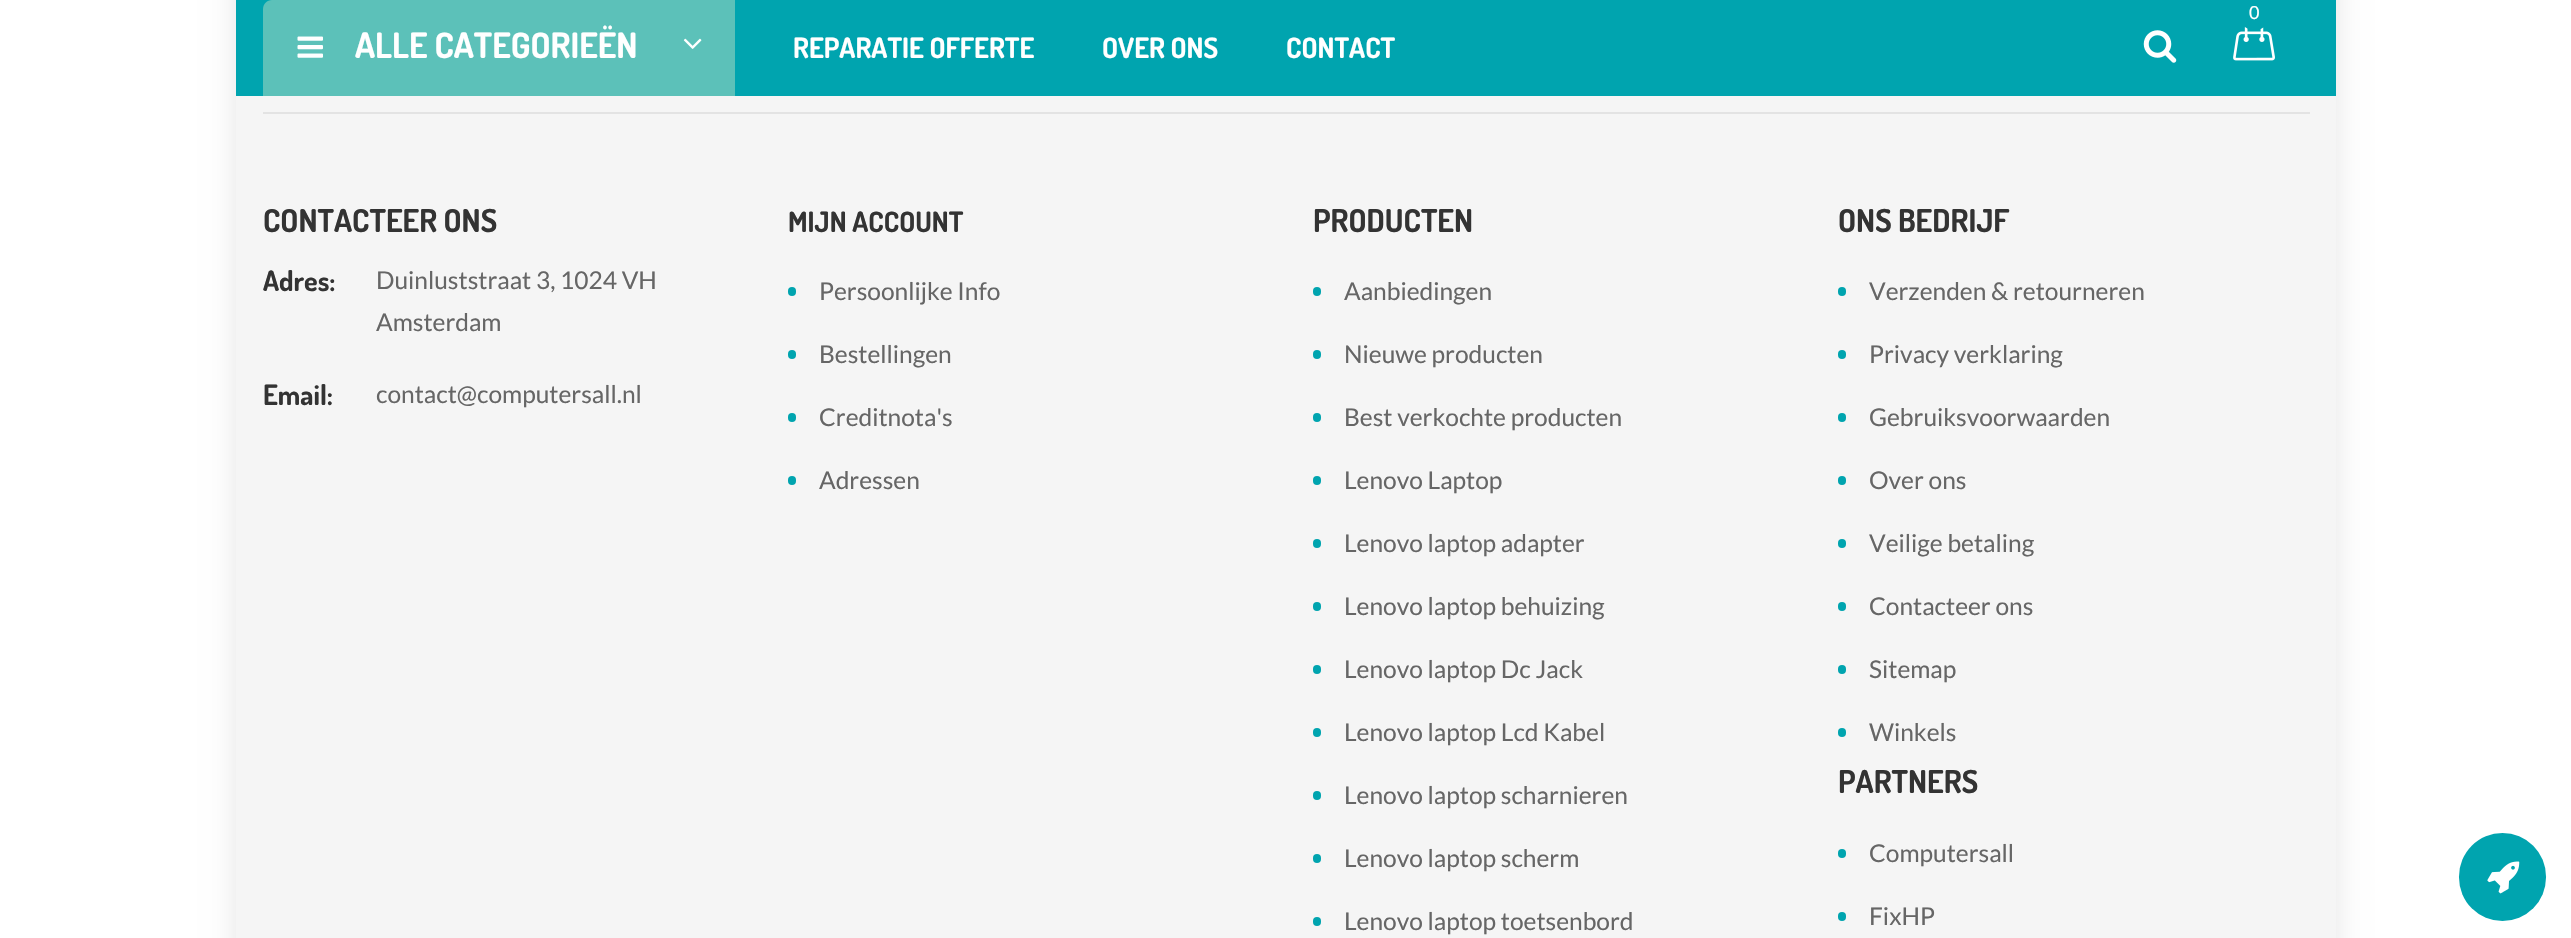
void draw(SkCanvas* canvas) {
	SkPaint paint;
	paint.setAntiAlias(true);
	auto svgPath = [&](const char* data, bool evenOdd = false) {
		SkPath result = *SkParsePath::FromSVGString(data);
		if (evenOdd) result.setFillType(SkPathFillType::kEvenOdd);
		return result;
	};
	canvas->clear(0xffffffff);
	paint.setColor(0x1a000000);
	paint.setMaskFilter(SkMaskFilter::MakeBlur(kNormal_SkBlurStyle, 13));
	canvas->drawRect(SkRect::MakeXYWH(236, -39, 2100, 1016), paint);
	paint.setMaskFilter(nullptr);
	paint.setColor(0xff00a4af);
	canvas->drawRect(SkRect::MakeXYWH(236, 0, 2100, 96), paint);
	canvas->drawImageRect(SkImages::DeferredFromEncodedData(SkData::MakeFromFileName("img1.png")), SkRect::MakeXYWH(2233, 26, 42, 35), SkSamplingOptions());
	canvas->drawCircle(2254.5, 12.5, 17.5, paint);
	SkFont f1(fontMgr->matchFamilyStyle("Lato", SkFontStyle::Normal()), 18);
	f1.setSubpixel(true);
	paint.setColor(0xffffffff);
	canvas->drawString("0", 2249, 19, f1, paint);
	canvas->drawImageRect(SkImages::DeferredFromEncodedData(SkData::MakeFromFileName("img2.png")), SkRect::MakeXYWH(2143, 30, 34, 33), SkSamplingOptions());
	paint.setColor(0xff5cc1b9);
	canvas->drawPath(svgPath("M272 0H735V96H263V9C263 4 267 0 272 0Z"), paint);
	canvas->drawImageRect(SkImages::DeferredFromEncodedData(SkData::MakeFromFileName("img3.png")), SkRect::MakeXYWH(297, 36, 26, 22), SkSamplingOptions());
	SkFont f2(fontMgr->matchFamilyStyle("Dosis", SkFontStyle::Bold()), 35);
	f2.setSubpixel(true);
	paint.setColor(0xffffffff);
	canvas->drawString("ALLE CATEGORIEËN", 355, 58, f2, paint);
	canvas->drawImageRect(SkImages::DeferredFromEncodedData(SkData::MakeFromFileName("img4.png")), SkRect::MakeXYWH(683, 38, 19, 11), SkSamplingOptions());
	SkFont f3(fontMgr->matchFamilyStyle("Dosis", SkFontStyle::Bold()), 28);
	f3.setSubpixel(true);
	canvas->drawString("REPARATIE OFFERTE", 793, 58, f3, paint);
	canvas->drawString("OVER ONS", 1102, 58, f3, paint);
	canvas->drawString("CONTACT", 1286, 58, f3, paint);
	paint.setColor(0xfff5f5f5);
	canvas->drawRect(SkRect::MakeXYWH(236, 96, 2100, 842), paint);
	paint.setColor(0xffe3e3e3);
	canvas->drawRect(SkRect::MakeXYWH(263, 112, 2047, 2), paint);
	SkFont f4(fontMgr->matchFamilyStyle("Dosis", SkFontStyle::Bold()), 31.5);
	f4.setSubpixel(true);
	paint.setColor(0xff333333);
	canvas->drawString("CONTACTEER ONS", 263, 232, f4, paint);
	canvas->drawString("Adres:", 263, 291, f3, paint);
	SkFont f5(fontMgr->matchFamilyStyle("Lato", SkFontStyle::Normal()), 24.5);
	f5.setSubpixel(true);
	paint.setColor(0xff666666);
	canvas->drawString("Duinluststraat 3, 1024 VH", 376, 289, f5, paint);
	canvas->drawString("Amsterdam", 376, 331, f5, paint);
	paint.setColor(0xff333333);
	canvas->drawString("Email:", 263, 405, f3, paint);
	paint.setColor(0xff666666);
	canvas->drawString("contact@computersall.nl", 376, 403, f5, paint);
	paint.setColor(0xff333333);
	canvas->drawString("MIJN ACCOUNT", 788, 232, f3, paint);
	paint.setColor(0xff00a4af);
	canvas->drawRoundRect(SkRect::MakeXYWH(788, 287, 8, 9), 4, 4, paint);
	paint.setColor(0xff666666);
	canvas->drawString("Persoonlijke Info", 819, 300, f5, paint);
	paint.setColor(0xff00a4af);
	canvas->drawRoundRect(SkRect::MakeXYWH(788, 350, 8, 9), 4, 4, paint);
	paint.setColor(0xff666666);
	canvas->drawString("Bestellingen", 819, 363, f5, paint);
	paint.setColor(0xff00a4af);
	canvas->drawRoundRect(SkRect::MakeXYWH(788, 413, 8, 9), 4, 4, paint);
	paint.setColor(0xff666666);
	canvas->drawString("Creditnota's", 819, 426, f5, paint);
	paint.setColor(0xff00a4af);
	canvas->drawRoundRect(SkRect::MakeXYWH(788, 476, 8, 9), 4, 4, paint);
	paint.setColor(0xff666666);
	canvas->drawString("Adressen", 819, 489, f5, paint);
	paint.setColor(0xff333333);
	canvas->drawString("PRODUCTEN", 1313, 232, f4, paint);
	paint.setColor(0xff00a4af);
	canvas->drawRoundRect(SkRect::MakeXYWH(1313, 287, 8, 9), 4, 4, paint);
	paint.setColor(0xff666666);
	canvas->drawString("Aanbiedingen", 1344, 300, f5, paint);
	paint.setColor(0xff00a4af);
	canvas->drawRoundRect(SkRect::MakeXYWH(1313, 350, 8, 9), 4, 4, paint);
	paint.setColor(0xff666666);
	canvas->drawString("Nieuwe producten", 1344, 363, f5, paint);
	paint.setColor(0xff00a4af);
	canvas->drawRoundRect(SkRect::MakeXYWH(1313, 413, 8, 9), 4, 4, paint);
	paint.setColor(0xff666666);
	canvas->drawString("Best verkochte producten", 1344, 426, f5, paint);
	paint.setColor(0xff00a4af);
	canvas->drawRoundRect(SkRect::MakeXYWH(1313, 476, 8, 9), 4, 4, paint);
	paint.setColor(0xff666666);
	canvas->drawString("Lenovo Laptop", 1344, 489, f5, paint);
	paint.setColor(0xff00a4af);
	canvas->drawRoundRect(SkRect::MakeXYWH(1313, 539, 8, 9), 4, 4, paint);
	paint.setColor(0xff666666);
	canvas->drawString("Lenovo laptop adapter", 1344, 552, f5, paint);
	paint.setColor(0xff00a4af);
	canvas->drawRoundRect(SkRect::MakeXYWH(1313, 602, 8, 9), 4, 4, paint);
	paint.setColor(0xff666666);
	canvas->drawString("Lenovo laptop behuizing", 1344, 615, f5, paint);
	paint.setColor(0xff00a4af);
	canvas->drawRoundRect(SkRect::MakeXYWH(1313, 665, 8, 9), 4, 4, paint);
	paint.setColor(0xff666666);
	canvas->drawString("Lenovo laptop Dc Jack", 1344, 678, f5, paint);
	paint.setColor(0xff00a4af);
	canvas->drawRoundRect(SkRect::MakeXYWH(1313, 728, 8, 9), 4, 4, paint);
	paint.setColor(0xff666666);
	canvas->drawString("Lenovo laptop Lcd Kabel", 1344, 741, f5, paint);
	paint.setColor(0xff00a4af);
	canvas->drawRoundRect(SkRect::MakeXYWH(1313, 791, 8, 9), 4, 4, paint);
	paint.setColor(0xff666666);
	canvas->drawString("Lenovo laptop scharnieren", 1344, 804, f5, paint);
	paint.setColor(0xff00a4af);
	canvas->drawRoundRect(SkRect::MakeXYWH(1313, 854, 8, 9), 4, 4, paint);
	paint.setColor(0xff666666);
	canvas->drawString("Lenovo laptop scherm", 1344, 867, f5, paint);
	paint.setColor(0xff00a4af);
	canvas->drawRoundRect(SkRect::MakeXYWH(1313, 917, 8, 9), 4, 4, paint);
	paint.setColor(0xff666666);
	canvas->drawString("Lenovo laptop toetsenbord", 1344, 930, f5, paint);
	paint.setColor(0xff333333);
	canvas->drawString("ONS BEDRIJF", 1838, 232, f4, paint);
	paint.setColor(0xff00a4af);
	canvas->drawRoundRect(SkRect::MakeXYWH(1838, 287, 8, 9), 4, 4, paint);
	paint.setColor(0xff666666);
	canvas->drawString("Verzenden & retourneren", 1869, 300, f5, paint);
	paint.setColor(0xff00a4af);
	canvas->drawRoundRect(SkRect::MakeXYWH(1838, 350, 8, 9), 4, 4, paint);
	paint.setColor(0xff666666);
	canvas->drawString("Privacy verklaring", 1869, 363, f5, paint);
	paint.setColor(0xff00a4af);
	canvas->drawRoundRect(SkRect::MakeXYWH(1838, 413, 8, 9), 4, 4, paint);
	paint.setColor(0xff666666);
	canvas->drawString("Gebruiksvoorwaarden", 1869, 426, f5, paint);
	paint.setColor(0xff00a4af);
	canvas->drawRoundRect(SkRect::MakeXYWH(1838, 476, 8, 9), 4, 4, paint);
	paint.setColor(0xff666666);
	canvas->drawString("Over ons", 1869, 489, f5, paint);
	paint.setColor(0xff00a4af);
	canvas->drawRoundRect(SkRect::MakeXYWH(1838, 539, 8, 9), 4, 4, paint);
	paint.setColor(0xff666666);
	canvas->drawString("Veilige betaling", 1869, 552, f5, paint);
	paint.setColor(0xff00a4af);
	canvas->drawRoundRect(SkRect::MakeXYWH(1838, 602, 8, 9), 4, 4, paint);
	paint.setColor(0xff666666);
	canvas->drawString("Contacteer ons", 1869, 615, f5, paint);
	paint.setColor(0xff00a4af);
	canvas->drawRoundRect(SkRect::MakeXYWH(1838, 665, 8, 9), 4, 4, paint);
	paint.setColor(0xff666666);
	canvas->drawString("Sitemap", 1869, 678, f5, paint);
	paint.setColor(0xff00a4af);
	canvas->drawRoundRect(SkRect::MakeXYWH(1838, 728, 8, 9), 4, 4, paint);
	paint.setColor(0xff666666);
	canvas->drawString("Winkels", 1869, 741, f5, paint);
	paint.setColor(0xff333333);
	canvas->drawString("PARTNERS", 1838, 793, f4, paint);
	paint.setColor(0xff00a4af);
	canvas->drawRoundRect(SkRect::MakeXYWH(1838, 849, 8, 9), 4, 4, paint);
	paint.setColor(0xff666666);
	canvas->drawString("Computersall", 1869, 862, f5, paint);
	paint.setColor(0xff00a4af);
	canvas->drawRoundRect(SkRect::MakeXYWH(1838, 912, 8, 9), 4, 4, paint);
	paint.setColor(0xff666666);
	canvas->drawString("FixHP", 1869, 925, f5, paint);
	paint.setColor(0xff00a4af);
	canvas->drawRoundRect(SkRect::MakeXYWH(2459, 833, 87, 88), 43.5, 43.5, paint);
	canvas->drawImageRect(SkImages::DeferredFromEncodedData(SkData::MakeFromFileName("img5.png")), SkRect::MakeXYWH(2487, 861, 33, 33), SkSamplingOptions());
}
